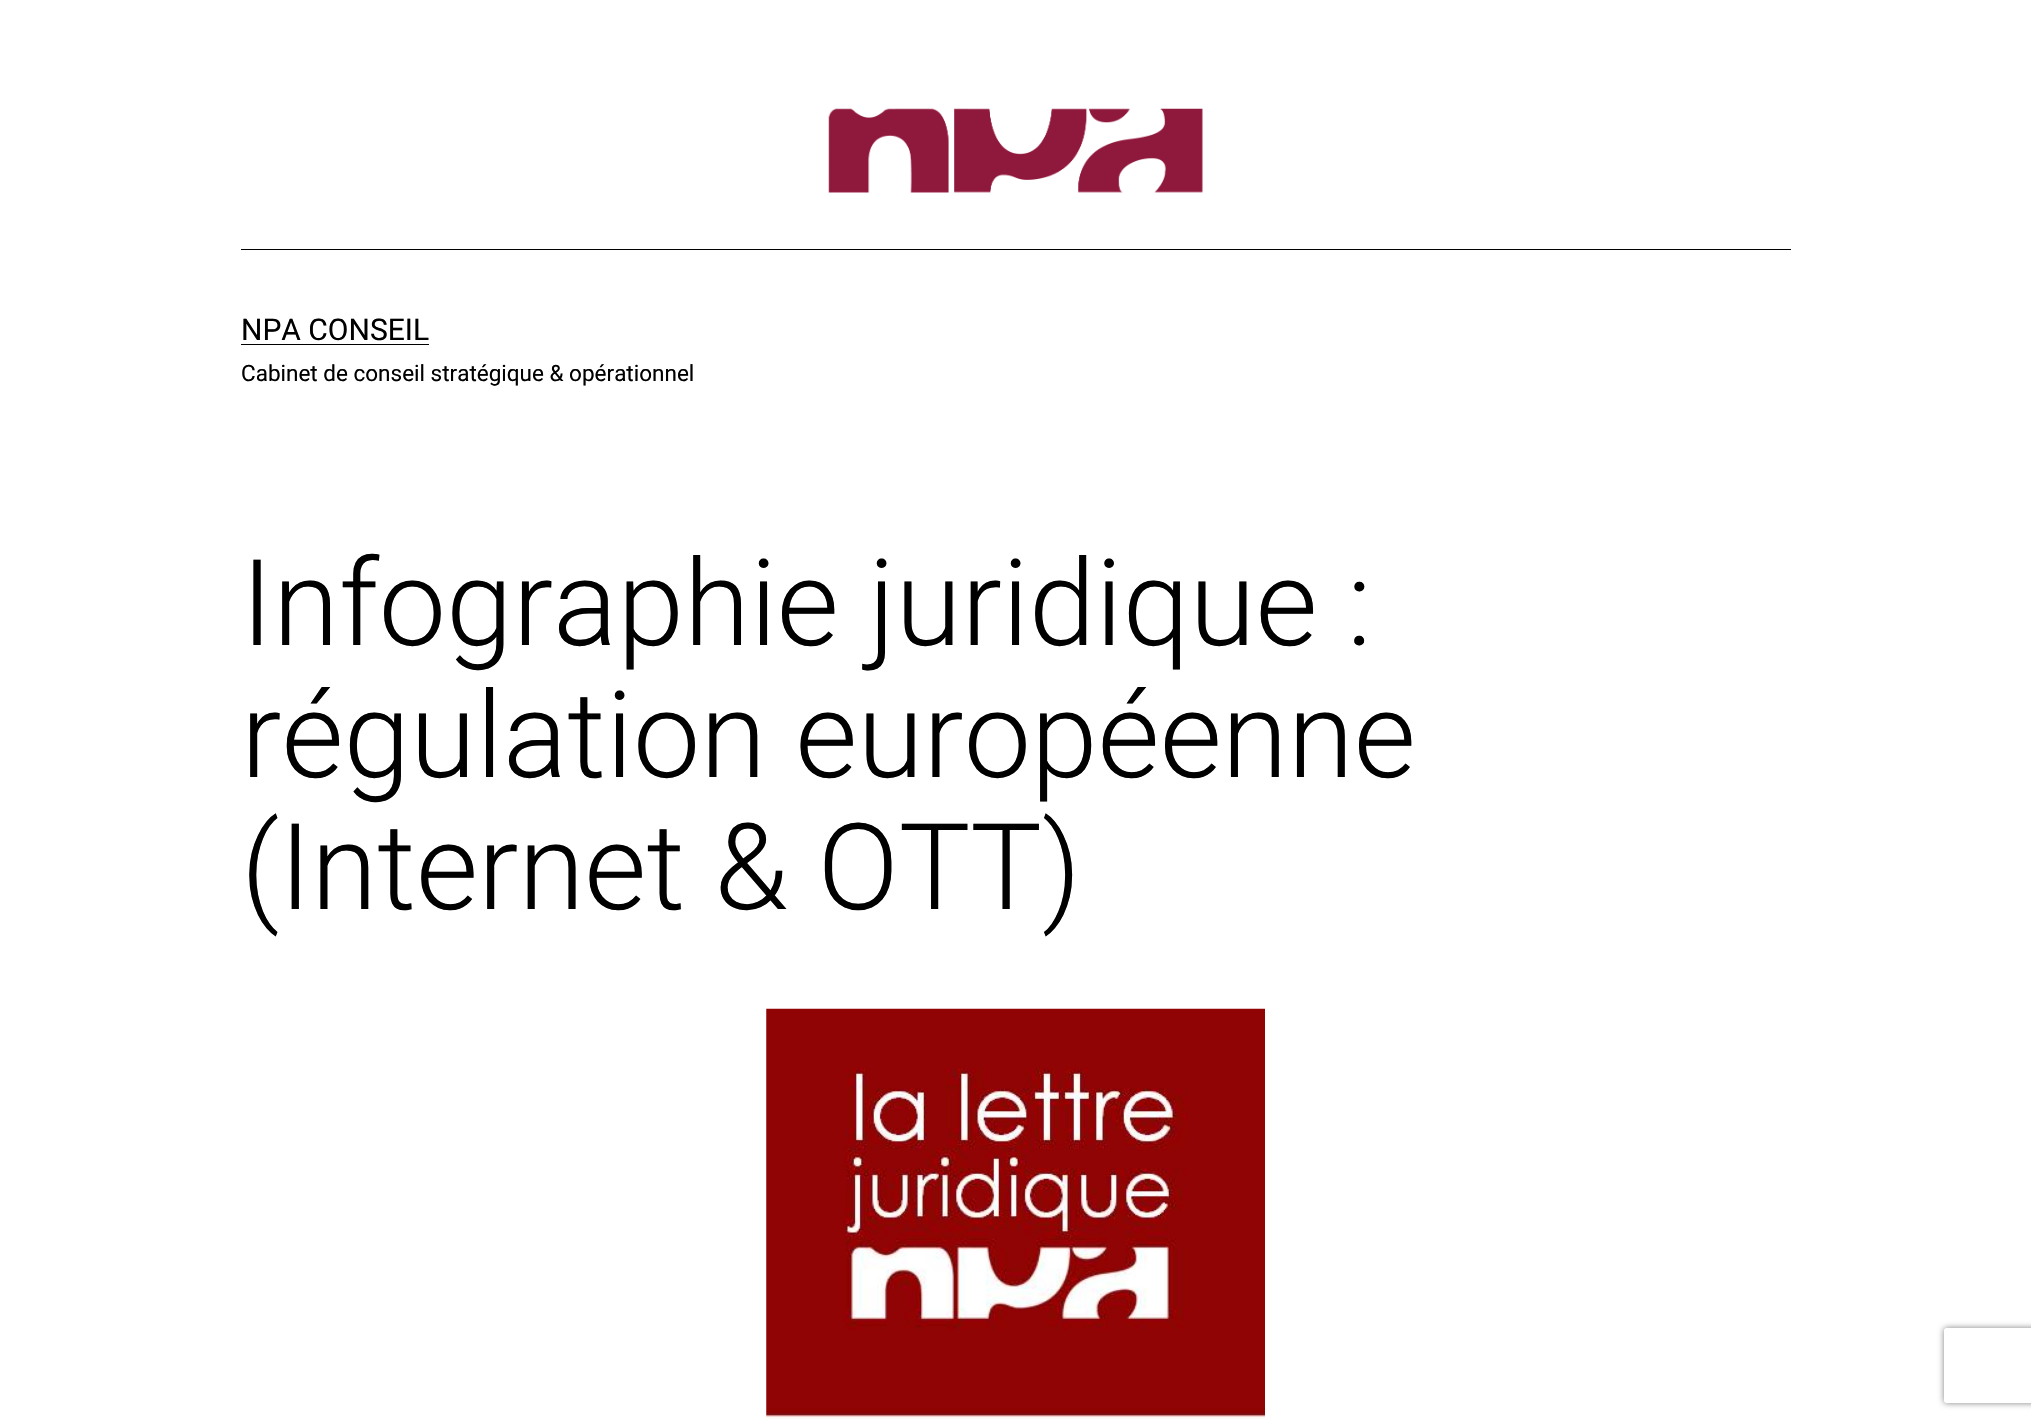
void draw(SkCanvas* canvas) {
	SkPaint paint;
	paint.setAntiAlias(true);
	auto svgPath = [&](const char* data, bool evenOdd = false) {
		SkPath result = *SkParsePath::FromSVGString(data);
		if (evenOdd) result.setFillType(SkPathFillType::kEvenOdd);
		return result;
	};
	canvas->clear(0xffffffff);
	paint.setColor(0xff000000);
	canvas->drawRect(SkRect::MakeXYWH(241, 249, 1550, 1), paint);
	canvas->drawImageRect(SkImages::DeferredFromEncodedData(SkData::MakeFromFileName("img1.png")), SkRect::MakeXYWH(828, 108, 375, 85), SkSamplingOptions());
	SkFont f1(fontMgr->matchFamilyStyle("Roboto", SkFontStyle::Normal()), 30);
	f1.setSubpixel(true);
	canvas->drawString("NPA CONSEIL", 241, 340, f1, paint);
	canvas->drawRect(SkRect::MakeXYWH(241, 344, 188, 1), paint);
	SkFont f2(fontMgr->matchFamilyStyle("Roboto", SkFontStyle::Normal()), 22.5);
	f2.setSubpixel(true);
	canvas->drawString("Cabinet de conseil stratégique & opérationnel", 241, 381, f2, paint);
	SkFont f3(fontMgr->matchFamilyStyle("Roboto", SkFontStyle(300, SkFontStyle::kNormal_Width, SkFontStyle::kUpright_Slant)), 120);
	f3.setSubpixel(true);
	canvas->drawString("Infographie juridique :", 241, 645, f3, paint);
	canvas->drawString("régulation européenne", 241, 777, f3, paint);
	canvas->drawString("(Internet & OTT)", 241, 909, f3, paint);
	canvas->drawImageRect(SkImages::DeferredFromEncodedData(SkData::MakeFromFileName("img2.png")), SkRect::MakeXYWH(766, 1008, 499, 411), SkSamplingOptions());
	canvas->save();
	canvas->clipPath(svgPath("M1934 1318H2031V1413H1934ZM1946.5 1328H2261.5C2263 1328 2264 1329 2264 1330.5V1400.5C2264 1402 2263 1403 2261.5 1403H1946.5C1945 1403 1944 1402 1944 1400.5V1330.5C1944 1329 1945 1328 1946.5 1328Z", true), true);
	paint.setColor(0xff808080);
	paint.setMaskFilter(SkMaskFilter::MakeBlur(kNormal_SkBlurStyle, 3));
	canvas->drawRoundRect(SkRect::MakeXYWH(1944, 1328, 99, 75), 2.5, 2.5, paint);
	paint.setMaskFilter(nullptr);
	canvas->restore();
}
